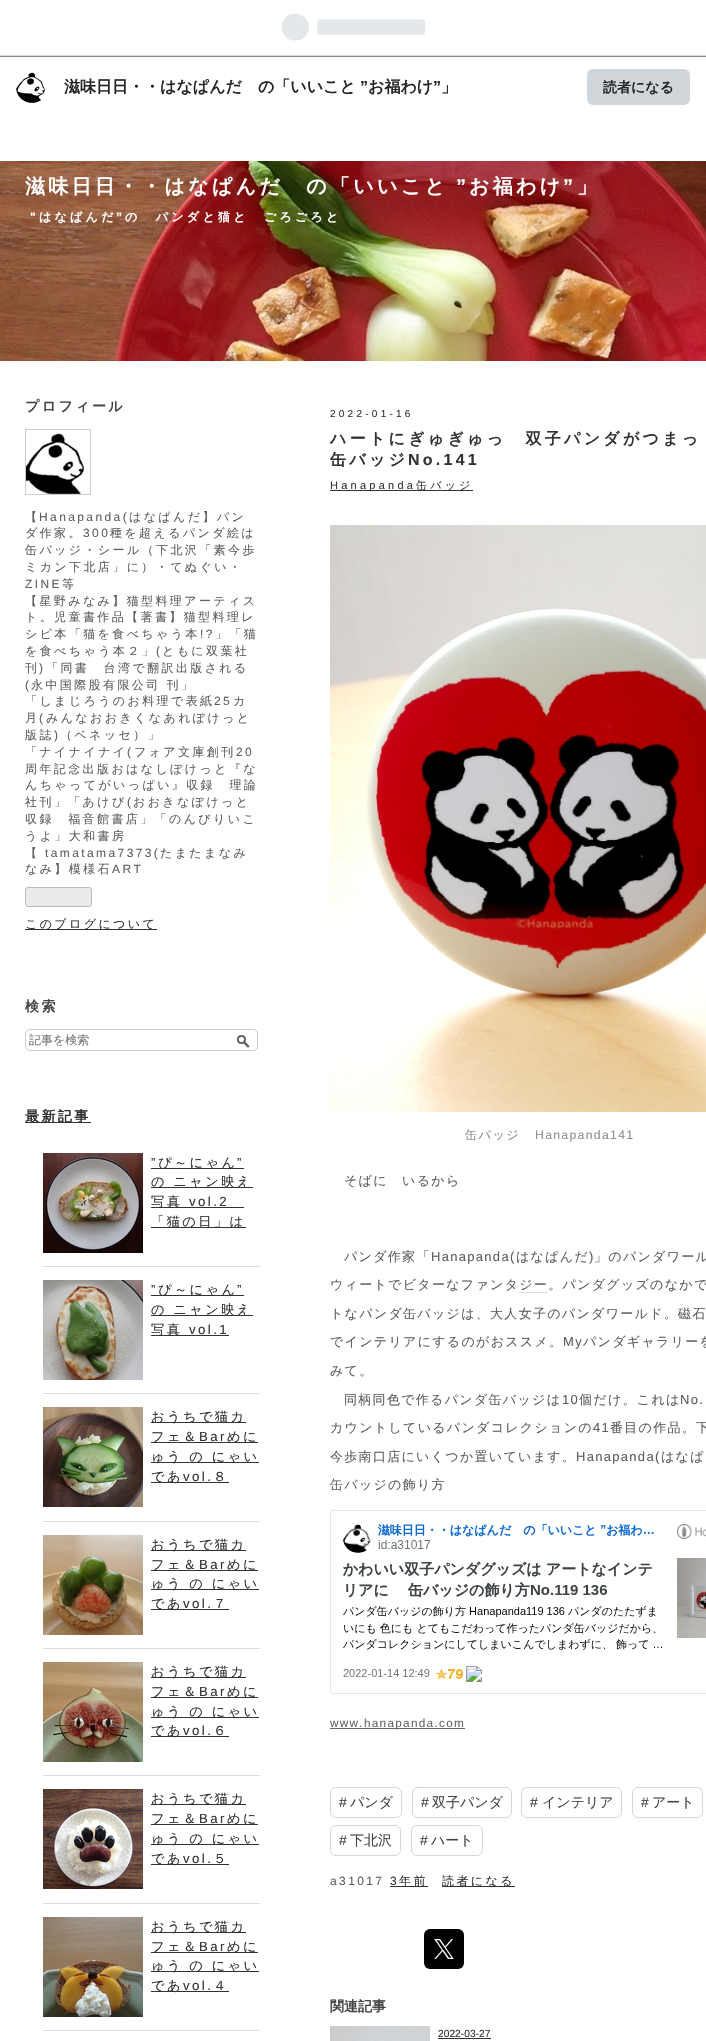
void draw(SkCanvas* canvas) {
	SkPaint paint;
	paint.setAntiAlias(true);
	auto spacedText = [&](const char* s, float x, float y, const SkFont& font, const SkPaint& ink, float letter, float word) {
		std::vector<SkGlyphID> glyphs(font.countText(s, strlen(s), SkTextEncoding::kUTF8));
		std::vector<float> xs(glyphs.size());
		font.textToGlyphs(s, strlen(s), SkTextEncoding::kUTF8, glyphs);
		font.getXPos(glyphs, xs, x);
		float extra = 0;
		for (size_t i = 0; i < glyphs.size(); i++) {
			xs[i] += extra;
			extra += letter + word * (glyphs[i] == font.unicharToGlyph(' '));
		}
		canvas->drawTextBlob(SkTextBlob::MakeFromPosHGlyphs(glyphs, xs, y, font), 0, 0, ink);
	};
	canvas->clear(0xffffffff);
	paint.setColor(0xffd2d8dd);
	canvas->drawRect(SkRect::MakeXYWH(0, 55, 706, 1), paint);
	paint.setColor(0xff888888);
	canvas->drawRect(SkRect::MakeXYWH(0, 56, 706, 1), paint);
	canvas->drawImageRect(SkImages::DeferredFromEncodedData(SkData::MakeFromFileName("img1.png")), SkRect::MakeXYWH(282, 14, 143, 27), SkSamplingOptions());
	canvas->drawImageRect(SkImages::DeferredFromEncodedData(SkData::MakeFromFileName("img2.png")), SkRect::MakeXYWH(16, 72, 29, 31), SkSamplingOptions());
	SkFont f1(fontMgr->matchFamilyStyle("WenQuanYi Zen Hei", SkFontStyle::Bold()), 16);
	f1.setSubpixel(true);
	paint.setColor(0xff242527);
	canvas->drawString("滋味日日・・はなぱんだ　の「いいこと", 64, 92, f1, paint);
	SkFont f2(fontMgr->matchFamilyStyle("Liberation Sans", SkFontStyle::Bold()), 16);
	f2.setSubpixel(true);
	canvas->drawString("”", 360, 92, f2, paint);
	canvas->drawString("お福わけ", 368, 92, f1, paint);
	canvas->drawString("”", 433, 92, f2, paint);
	canvas->drawString("」", 441, 92, f1, paint);
	paint.setColor(0xffd1d6da);
	canvas->drawRoundRect(SkRect::MakeXYWH(587, 69, 103, 36), 6, 6, paint);
	SkFont f3(fontMgr->matchFamilyStyle("WenQuanYi Zen Hei", SkFontStyle::Bold()), 14);
	f3.setSubpixel(true);
	paint.setColor(0xff242527);
	canvas->drawString("読者になる", 603, 92, f3, paint);
	canvas->drawImageRect(SkImages::DeferredFromEncodedData(SkData::MakeFromFileName("img3.png")), SkRect::MakeXYWH(0, 161, 706, 200), SkSamplingOptions());
	SkFont f4(fontMgr->matchFamilyStyle("WenQuanYi Zen Hei", SkFontStyle::Bold()), 20);
	f4.setSubpixel(true);
	paint.setColor(0xffffffff);
	spacedText("滋味日日・・はなぱんだ　の「いいこと", 25, 193, f4, paint, 3.25, 0);
	SkFont f5(fontMgr->matchFamilyStyle("Liberation Sans", SkFontStyle::Bold()), 20);
	f5.setSubpixel(true);
	spacedText("”", 456, 193, f5, paint, 3.25, 0);
	spacedText("お福わけ", 469, 193, f4, paint, 3.25, 0);
	spacedText("”", 563, 193, f5, paint, 3.25, 0);
	spacedText("」", 577, 193, f4, paint, 3.25, 0);
	SkFont f6(fontMgr->matchFamilyStyle("Liberation Sans", SkFontStyle::Bold()), 12);
	f6.setSubpixel(true);
	spacedText("\"", 30, 221, f6, paint, 3.25, 0);
	SkFont f7(fontMgr->matchFamilyStyle("WenQuanYi Zen Hei", SkFontStyle::Bold()), 12);
	f7.setSubpixel(true);
	spacedText("はなぱんだ", 39, 221, f7, paint, 3.25, 0);
	spacedText("”", 116, 221, f6, paint, 3.25, 0);
	spacedText("の　パンダと猫と　ごろごろと", 125, 221, f7, paint, 3.25, 0);
	paint.setColor(0xff454545);
	spacedText("プロフィール", 25, 411, f3, paint, 2.4, 0);
	paint.setStroke(true);
	paint.setStrokeWidth(1);
	paint.setColor(0xffcccccc);
	canvas->drawRect(SkRect::MakeXYWH(25.5, 429.5, 65, 65), paint);
	canvas->drawImageRect(SkImages::DeferredFromEncodedData(SkData::MakeFromFileName("img4.png")), SkRect::MakeXYWH(26, 433, 59, 61), SkSamplingOptions());
	SkFont f8(fontMgr->matchFamilyStyle("WenQuanYi Zen Hei", SkFontStyle(500, SkFontStyle::kNormal_Width, SkFontStyle::kUpright_Slant)), 12);
	f8.setSubpixel(true);
	paint.setStroke(false);
	paint.setColor(0xff5f5e5e);
	spacedText("【", 25, 521, f8, paint, 2.4, 0);
	SkFont f9(fontMgr->matchFamilyStyle("Liberation Sans", SkFontStyle::Normal()), 12);
	f9.setSubpixel(true);
	spacedText("Hanapanda(", 39, 521, f9, paint, 2.4, 0);
	spacedText("はなぱんだ】パン", 129, 521, f8, paint, 2.4, 0);
	spacedText("ダ作家。", 25, 537, f8, paint, 2.4, 0);
	spacedText("300", 83, 537, f9, paint, 2.4, 0);
	spacedText("種を超えるパンダ絵は", 110, 537, f8, paint, 2.4, 0);
	spacedText("缶バッジ・シール（下北沢「素今歩", 25, 554, f8, paint, 2.4, 0);
	spacedText("ミカン下北店」に）・てぬぐい・", 25, 571, f8, paint, 2.4, 0);
	spacedText("ZINE", 25, 588, f9, paint, 2.4, 0);
	spacedText("等", 62, 588, f8, paint, 2.4, 0);
	spacedText("【星野みなみ】猫型料理アーティス", 25, 605, f8, paint, 2.4, 0);
	spacedText("ト。児童書作品【著書】猫型料理レ", 25, 621, f8, paint, 2.4, 0);
	spacedText("シピ本「猫を食べちゃう本", 25, 638, f8, paint, 2.4, 0);
	spacedText("!?", 200, 638, f9, paint, 2.4, 0);
	spacedText("」「猫", 215, 638, f8, paint, 2.4, 0);
	spacedText("を食べちゃう本２」", 25, 655, f8, paint, 2.4, 0);
	spacedText("(", 156, 655, f9, paint, 2.4, 0);
	spacedText("ともに双葉社", 162, 655, f8, paint, 2.4, 0);
	spacedText("刊", 25, 672, f8, paint, 2.4, 0);
	spacedText(")", 39, 672, f9, paint, 2.4, 0);
	spacedText("「同書　台湾で翻訳出版される", 46, 672, f8, paint, 2.4, 0);
	spacedText("(", 25, 689, f9, paint, 2.4, 0);
	spacedText("永中国際股有限公司 刊」", 31, 689, f8, paint, 2.4, 0);
	spacedText("「しまじろうのお料理で表紙", 25, 705, f8, paint, 2.4, 0);
	spacedText("25", 214, 705, f9, paint, 2.4, 0);
	spacedText("カ", 233, 705, f8, paint, 2.4, 0);
	spacedText("月", 25, 722, f8, paint, 2.4, 0);
	spacedText("(", 39, 722, f9, paint, 2.4, 0);
	spacedText("みんなおおきくなあれぽけっと", 46, 722, f8, paint, 2.4, 0);
	spacedText("版誌", 25, 739, f8, paint, 2.4, 0);
	spacedText(")", 54, 739, f9, paint, 2.4, 0);
	spacedText("（ベネッセ）」", 60, 739, f8, paint, 2.4, 0);
	spacedText("「ナイナイナイ", 25, 756, f8, paint, 2.4, 0);
	spacedText("(", 127, 756, f9, paint, 2.4, 0);
	spacedText("フォア文庫創刊", 134, 756, f8, paint, 2.4, 0);
	spacedText("20", 236, 756, f9, paint, 2.4, 0);
	spacedText("周年記念出版おはなしぽけっと『な", 25, 773, f8, paint, 2.4, 0);
	spacedText("んちゃってがいっぱい』収録　理論", 25, 789, f8, paint, 2.4, 0);
	spacedText("社刊」「あけび", 25, 806, f8, paint, 2.4, 0);
	spacedText("(", 127, 806, f9, paint, 2.4, 0);
	spacedText("おおきなぽけっと", 133, 806, f8, paint, 2.4, 0);
	spacedText("収録　福音館書店」「のんびりいこ", 25, 823, f8, paint, 2.4, 0);
	spacedText("うよ」大和書房", 25, 840, f8, paint, 2.4, 0);
	spacedText("【", 25, 857, f8, paint, 2.4, 0);
	spacedText("tamatama7373(", 45, 857, f9, paint, 2.4, 0);
	spacedText("たまたまなみ", 160, 857, f8, paint, 2.4, 0);
	spacedText("なみ】模様石", 25, 873, f8, paint, 2.4, 0);
	spacedText("ART", 112, 873, f9, paint, 2.4, 0);
	paint.setColor(0xffebebeb);
	canvas->drawRoundRect(SkRect::MakeXYWH(25.5, 887.5, 66, 19), 2.5, 2.5, paint);
	paint.setStroke(true);
	paint.setColor(0xffbbbbbb);
	canvas->drawRoundRect(SkRect::MakeXYWH(25.5, 887.5, 66, 19), 2.5, 2.5, paint);
	paint.setStroke(false);
	paint.setColor(0xff333333);
	canvas->drawRect(SkRect::MakeXYWH(25, 929, 132, 1), paint);
	spacedText("このブログについて", 25, 928, f8, paint, 2.4, 0);
	paint.setColor(0xff454545);
	spacedText("検索", 25, 1011, f3, paint, 2.4, 0);
	paint.setStroke(true);
	paint.setColor(0xffcccccc);
	canvas->drawRoundRect(SkRect::MakeXYWH(25.5, 1029.5, 232, 21), 4.5, 4.5, paint);
	paint.setStroke(false);
	paint.setColor(0xff757575);
	canvas->drawString("記事を検索", 29, 1044, f8, paint);
	canvas->drawImageRect(SkImages::DeferredFromEncodedData(SkData::MakeFromFileName("img5.png")), SkRect::MakeXYWH(237, 1035, 13, 13), SkSamplingOptions());
	paint.setColor(0xff333333);
	canvas->drawRect(SkRect::MakeXYWH(25, 1122, 66, 1), paint);
	spacedText("最新記事", 25, 1121, f3, paint, 2.4, 0);
	paint.setColor(0xffdddddd);
	canvas->drawRect(SkRect::MakeXYWH(43, 1266, 217, 1), paint);
	canvas->drawImageRect(SkImages::DeferredFromEncodedData(SkData::MakeFromFileName("img6.png")), SkRect::MakeXYWH(43, 1153, 100, 100), SkSamplingOptions());
	SkFont f10(fontMgr->matchFamilyStyle("Liberation Sans", SkFontStyle::Normal()), 13.25);
	f10.setSubpixel(true);
	paint.setColor(0xff333333);
	spacedText("”", 151, 1167, f10, paint, 2.4, 0);
	canvas->drawRect(SkRect::MakeXYWH(151, 1168, 93, 1), paint);
	SkFont f11(fontMgr->matchFamilyStyle("WenQuanYi Zen Hei", SkFontStyle(500, SkFontStyle::kNormal_Width, SkFontStyle::kUpright_Slant)), 13.25);
	f11.setSubpixel(true);
	spacedText("ぴ～にゃん", 158, 1167, f11, paint, 2.4, 0);
	spacedText("”", 237, 1167, f10, paint, 2.4, 0);
	canvas->drawRect(SkRect::MakeXYWH(151, 1187, 102, 1), paint);
	spacedText("の ニャン映え", 151, 1186, f11, paint, 2.4, 0);
	canvas->drawRect(SkRect::MakeXYWH(151, 1207, 93, 1), paint);
	spacedText("写真", 151, 1206, f11, paint, 2.4, 0);
	spacedText("vol.2", 189, 1206, f10, paint, 2.4, 0);
	canvas->drawRect(SkRect::MakeXYWH(151, 1227, 95, 1), paint);
	spacedText("「猫の日」は", 151, 1226, f11, paint, 2.4, 0);
	paint.setColor(0xffdddddd);
	canvas->drawRect(SkRect::MakeXYWH(43, 1393, 217, 1), paint);
	canvas->drawImageRect(SkImages::DeferredFromEncodedData(SkData::MakeFromFileName("img7.png")), SkRect::MakeXYWH(43, 1280, 100, 100), SkSamplingOptions());
	paint.setColor(0xff333333);
	spacedText("”", 151, 1294, f10, paint, 2.4, 0);
	canvas->drawRect(SkRect::MakeXYWH(151, 1295, 93, 1), paint);
	spacedText("ぴ～にゃん", 158, 1294, f11, paint, 2.4, 0);
	spacedText("”", 237, 1294, f10, paint, 2.4, 0);
	canvas->drawRect(SkRect::MakeXYWH(151, 1315, 102, 1), paint);
	spacedText("の ニャン映え", 151, 1314, f11, paint, 2.4, 0);
	canvas->drawRect(SkRect::MakeXYWH(151, 1335, 78, 1), paint);
	spacedText("写真", 151, 1334, f11, paint, 2.4, 0);
	spacedText("vol.1", 189, 1334, f10, paint, 2.4, 0);
	paint.setColor(0xffdddddd);
	canvas->drawRect(SkRect::MakeXYWH(43, 1521, 217, 1), paint);
	canvas->drawImageRect(SkImages::DeferredFromEncodedData(SkData::MakeFromFileName("img8.png")), SkRect::MakeXYWH(43, 1407, 100, 100), SkSamplingOptions());
	paint.setColor(0xff333333);
	canvas->drawRect(SkRect::MakeXYWH(151, 1422, 95, 1), paint);
	spacedText("おうちで猫カ", 151, 1421, f11, paint, 2.4, 0);
	canvas->drawRect(SkRect::MakeXYWH(151, 1442, 107, 1), paint);
	spacedText("フェ＆", 151, 1441, f11, paint, 2.4, 0);
	spacedText("Bar", 199, 1441, f10, paint, 2.4, 0);
	spacedText("めに", 227, 1441, f11, paint, 2.4, 0);
	canvas->drawRect(SkRect::MakeXYWH(151, 1462, 108, 1), paint);
	spacedText("ゅう の にゃい", 151, 1461, f11, paint, 2.4, 0);
	canvas->drawRect(SkRect::MakeXYWH(151, 1482, 78, 1), paint);
	spacedText("であ", 151, 1481, f11, paint, 2.4, 0);
	spacedText("vol.", 183, 1481, f10, paint, 2.4, 0);
	spacedText("８", 213, 1481, f11, paint, 2.4, 0);
	paint.setColor(0xffdddddd);
	canvas->drawRect(SkRect::MakeXYWH(43, 1648, 217, 1), paint);
	canvas->drawImageRect(SkImages::DeferredFromEncodedData(SkData::MakeFromFileName("img9.png")), SkRect::MakeXYWH(43, 1535, 100, 100), SkSamplingOptions());
	paint.setColor(0xff333333);
	canvas->drawRect(SkRect::MakeXYWH(151, 1550, 95, 1), paint);
	spacedText("おうちで猫カ", 151, 1549, f11, paint, 2.4, 0);
	canvas->drawRect(SkRect::MakeXYWH(151, 1570, 107, 1), paint);
	spacedText("フェ＆", 151, 1569, f11, paint, 2.4, 0);
	spacedText("Bar", 199, 1569, f10, paint, 2.4, 0);
	spacedText("めに", 227, 1569, f11, paint, 2.4, 0);
	canvas->drawRect(SkRect::MakeXYWH(151, 1589, 108, 1), paint);
	spacedText("ゅう の にゃい", 151, 1588, f11, paint, 2.4, 0);
	canvas->drawRect(SkRect::MakeXYWH(151, 1609, 78, 1), paint);
	spacedText("であ", 151, 1608, f11, paint, 2.4, 0);
	spacedText("vol.", 183, 1608, f10, paint, 2.4, 0);
	spacedText("７", 213, 1608, f11, paint, 2.4, 0);
	paint.setColor(0xffdddddd);
	canvas->drawRect(SkRect::MakeXYWH(43, 1775, 217, 1), paint);
	canvas->drawImageRect(SkImages::DeferredFromEncodedData(SkData::MakeFromFileName("img10.png")), SkRect::MakeXYWH(43, 1662, 100, 100), SkSamplingOptions());
	paint.setColor(0xff333333);
	canvas->drawRect(SkRect::MakeXYWH(151, 1677, 95, 1), paint);
	spacedText("おうちで猫カ", 151, 1676, f11, paint, 2.4, 0);
	canvas->drawRect(SkRect::MakeXYWH(151, 1697, 107, 1), paint);
	spacedText("フェ＆", 151, 1696, f11, paint, 2.4, 0);
	spacedText("Bar", 199, 1696, f10, paint, 2.4, 0);
	spacedText("めに", 227, 1696, f11, paint, 2.4, 0);
	canvas->drawRect(SkRect::MakeXYWH(151, 1717, 108, 1), paint);
	spacedText("ゅう の にゃい", 151, 1716, f11, paint, 2.4, 0);
	canvas->drawRect(SkRect::MakeXYWH(151, 1736, 78, 1), paint);
	spacedText("であ", 151, 1735, f11, paint, 2.4, 0);
	spacedText("vol.", 183, 1735, f10, paint, 2.4, 0);
	spacedText("６", 213, 1735, f11, paint, 2.4, 0);
	paint.setColor(0xffdddddd);
	canvas->drawRect(SkRect::MakeXYWH(43, 1903, 217, 1), paint);
	canvas->drawImageRect(SkImages::DeferredFromEncodedData(SkData::MakeFromFileName("img11.png")), SkRect::MakeXYWH(43, 1789, 100, 100), SkSamplingOptions());
	paint.setColor(0xff333333);
	canvas->drawRect(SkRect::MakeXYWH(151, 1804, 95, 1), paint);
	spacedText("おうちで猫カ", 151, 1803, f11, paint, 2.4, 0);
	canvas->drawRect(SkRect::MakeXYWH(151, 1824, 107, 1), paint);
	spacedText("フェ＆", 151, 1823, f11, paint, 2.4, 0);
	spacedText("Bar", 199, 1823, f10, paint, 2.4, 0);
	spacedText("めに", 227, 1823, f11, paint, 2.4, 0);
	canvas->drawRect(SkRect::MakeXYWH(151, 1844, 108, 1), paint);
	spacedText("ゅう の にゃい", 151, 1843, f11, paint, 2.4, 0);
	canvas->drawRect(SkRect::MakeXYWH(151, 1864, 78, 1), paint);
	spacedText("であ", 151, 1863, f11, paint, 2.4, 0);
	spacedText("vol.", 183, 1863, f10, paint, 2.4, 0);
	spacedText("５", 213, 1863, f11, paint, 2.4, 0);
	paint.setColor(0xffdddddd);
	canvas->drawRect(SkRect::MakeXYWH(43, 2030, 217, 1), paint);
	canvas->drawImageRect(SkImages::DeferredFromEncodedData(SkData::MakeFromFileName("img12.png")), SkRect::MakeXYWH(43, 1917, 100, 100), SkSamplingOptions());
	paint.setColor(0xff333333);
	canvas->drawRect(SkRect::MakeXYWH(151, 1932, 95, 1), paint);
	spacedText("おうちで猫カ", 151, 1931, f11, paint, 2.4, 0);
	canvas->drawRect(SkRect::MakeXYWH(151, 1952, 107, 1), paint);
	spacedText("フェ＆", 151, 1951, f11, paint, 2.4, 0);
	spacedText("Bar", 199, 1951, f10, paint, 2.4, 0);
	spacedText("めに", 227, 1951, f11, paint, 2.4, 0);
	canvas->drawRect(SkRect::MakeXYWH(151, 1971, 108, 1), paint);
	spacedText("ゅう の にゃい", 151, 1970, f11, paint, 2.4, 0);
	canvas->drawRect(SkRect::MakeXYWH(151, 1991, 78, 1), paint);
	spacedText("であ", 151, 1990, f11, paint, 2.4, 0);
	spacedText("vol.", 183, 1990, f10, paint, 2.4, 0);
	spacedText("４", 213, 1990, f11, paint, 2.4, 0);
	SkFont f12(fontMgr->matchFamilyStyle("Liberation Sans", SkFontStyle::Normal()), 10);
	f12.setSubpixel(true);
	spacedText("2022-01-16", 330, 417, f12, paint, 3.25, 0);
	spacedText("ハートにぎゅぎゅっ　双子パンダがつまっ", 330, 444, f1, paint, 3.25, 0);
	spacedText("缶バッジ", 330, 465, f1, paint, 3.25, 0);
	spacedText("No.141", 408, 465, f2, paint, 3.25, 0);
	canvas->drawRect(SkRect::MakeXYWH(330, 490, 143, 1), paint);
	SkFont f13(fontMgr->matchFamilyStyle("Liberation Sans", SkFontStyle::Normal()), 11);
	f13.setSubpixel(true);
	spacedText("Hanapanda", 330, 489, f13, paint, 3.25, 0);
	SkFont f14(fontMgr->matchFamilyStyle("WenQuanYi Zen Hei", SkFontStyle(500, SkFontStyle::kNormal_Width, SkFontStyle::kUpright_Slant)), 11);
	f14.setSubpixel(true);
	spacedText("缶バッジ", 416, 489, f14, paint, 3.25, 0);
	canvas->drawImageRect(SkImages::DeferredFromEncodedData(SkData::MakeFromFileName("img13.png")), SkRect::MakeXYWH(330, 525, 376, 587), SkSamplingOptions());
	SkFont f15(fontMgr->matchFamilyStyle("WenQuanYi Zen Hei", SkFontStyle(500, SkFontStyle::kNormal_Width, SkFontStyle::kUpright_Slant)), 12.25);
	f15.setSubpixel(true);
	paint.setColor(0xff8f8e8e);
	spacedText("缶バッジ", 465, 1139, f15, paint, 1.3, 0);
	SkFont f16(fontMgr->matchFamilyStyle("Liberation Sans", SkFontStyle::Normal()), 12.25);
	f16.setSubpixel(true);
	spacedText("Hanapanda141", 535, 1139, f16, paint, 1.3, 0);
	SkFont f17(fontMgr->matchFamilyStyle("WenQuanYi Zen Hei", SkFontStyle(500, SkFontStyle::kNormal_Width, SkFontStyle::kUpright_Slant)), 13);
	f17.setSubpixel(true);
	paint.setColor(0xff5f5e5e);
	spacedText("そばに　いるから", 344, 1185, f17, paint, 1.3, 0);
	spacedText("パンダ作家「", 344, 1261, f17, paint, 1.3, 0);
	SkFont f18(fontMgr->matchFamilyStyle("Liberation Sans", SkFontStyle::Normal()), 13);
	f18.setSubpixel(true);
	spacedText("Hanapanda(", 431, 1261, f18, paint, 1.3, 0);
	spacedText("はなぱんだ", 516, 1261, f17, paint, 1.3, 0);
	spacedText(")", 589, 1261, f18, paint, 1.3, 0);
	spacedText("」のパンダワール", 594, 1261, f17, paint, 1.3, 0);
	spacedText("ウィートでビターなファンタジー。パンダグッズのなかで", 330, 1289, f17, paint, 1.3, 0);
	paint.setColor(0xffdedede);
	canvas->drawRect(SkRect::MakeXYWH(519, 1292, 29, 1), paint);
	paint.setColor(0xff5f5e5e);
	spacedText("トなパンダ缶バッジは、大人女子のパンダワールド。磁石", 330, 1318, f17, paint, 1.3, 0);
	spacedText("でインテリアにするのがおススメ。", 330, 1346, f17, paint, 1.3, 0);
	spacedText("My", 563, 1346, f18, paint, 1.3, 0);
	spacedText("パンダギャラリーを", 583, 1346, f17, paint, 1.3, 0);
	spacedText("みて。", 330, 1375, f17, paint, 1.3, 0);
	spacedText("同柄同色で作るパンダ缶バッジは", 344, 1404, f17, paint, 1.3, 0);
	spacedText("10", 562, 1404, f18, paint, 1.3, 0);
	spacedText("個だけ。これは", 579, 1404, f17, paint, 1.3, 0);
	spacedText("No.", 680, 1404, f18, paint, 1.3, 0);
	spacedText("カウントしているパンダコレクションの", 330, 1432, f17, paint, 1.3, 0);
	spacedText("41", 593, 1432, f18, paint, 1.3, 0);
	spacedText("番目の作品。下", 610, 1432, f17, paint, 1.3, 0);
	spacedText("今歩南口店にいくつか置いています。", 330, 1461, f17, paint, 1.3, 0);
	spacedText("Hanapanda(", 576, 1461, f18, paint, 1.3, 0);
	spacedText("はなぱ", 661, 1461, f17, paint, 1.3, 0);
	spacedText("缶バッジの飾り方", 330, 1489, f17, paint, 1.3, 0);
	canvas->drawImageRect(SkImages::DeferredFromEncodedData(SkData::MakeFromFileName("img14.png")), SkRect::MakeXYWH(330, 1510, 376, 184), SkSamplingOptions());
	paint.setColor(0xff666666);
	canvas->drawRect(SkRect::MakeXYWH(330, 1728, 135, 1), paint);
	SkFont f19(fontMgr->matchFamilyStyle("Liberation Sans", SkFontStyle::Normal()), 11.75);
	f19.setSubpixel(true);
	spacedText("www.hanapanda.com", 330, 1727, f19, paint, 1.3, 0);
	paint.setStroke(true);
	paint.setColor(0xffd2d8dd);
	canvas->drawRoundRect(SkRect::MakeXYWH(330.5, 1787.5, 71, 30), 5.5, 5.5, paint);
	SkFont f20(fontMgr->matchFamilyStyle("Liberation Sans", SkFontStyle::Normal()), 14);
	f20.setSubpixel(true);
	paint.setStroke(false);
	paint.setColor(0xff3d4245);
	canvas->drawString("#", 339, 1807, f20, paint);
	SkFont f21(fontMgr->matchFamilyStyle("WenQuanYi Zen Hei", SkFontStyle(500, SkFontStyle::kNormal_Width, SkFontStyle::kUpright_Slant)), 14);
	f21.setSubpixel(true);
	canvas->drawString("パンダ", 350, 1807, f21, paint);
	paint.setStroke(true);
	paint.setColor(0xffd2d8dd);
	canvas->drawRoundRect(SkRect::MakeXYWH(412.5, 1787.5, 99, 30), 5.5, 5.5, paint);
	paint.setStroke(false);
	paint.setColor(0xff3d4245);
	canvas->drawString("#", 421, 1807, f20, paint);
	canvas->drawString("双子パンダ", 432, 1807, f21, paint);
	paint.setStroke(true);
	paint.setColor(0xffd2d8dd);
	canvas->drawRoundRect(SkRect::MakeXYWH(521.5, 1787.5, 100, 30), 5.5, 5.5, paint);
	paint.setStroke(false);
	paint.setColor(0xff3d4245);
	canvas->drawString("#", 530, 1807, f20, paint);
	canvas->drawString("インテリア", 542, 1807, f21, paint);
	paint.setStroke(true);
	paint.setColor(0xffd2d8dd);
	canvas->drawRoundRect(SkRect::MakeXYWH(632.5, 1787.5, 70, 30), 5.5, 5.5, paint);
	paint.setStroke(false);
	paint.setColor(0xff3d4245);
	canvas->drawString("#", 641, 1807, f20, paint);
	canvas->drawString("アート", 652, 1807, f21, paint);
	paint.setStroke(true);
	paint.setColor(0xffd2d8dd);
	canvas->drawRoundRect(SkRect::MakeXYWH(330.5, 1825.5, 70, 30), 5.5, 5.5, paint);
	paint.setStroke(false);
	paint.setColor(0xff3d4245);
	canvas->drawString("#", 339, 1845, f20, paint);
	canvas->drawString("下北沢", 350, 1845, f21, paint);
	paint.setStroke(true);
	paint.setColor(0xffd2d8dd);
	canvas->drawRoundRect(SkRect::MakeXYWH(411.5, 1825.5, 71, 30), 5.5, 5.5, paint);
	paint.setStroke(false);
	paint.setColor(0xff3d4245);
	canvas->drawString("#", 420, 1845, f20, paint);
	canvas->drawString("ハート", 431, 1845, f21, paint);
	paint.setColor(0xff5f5e5e);
	spacedText("a31017", 330, 1885, f9, paint, 2.4, 0);
	paint.setColor(0xff333333);
	spacedText("3", 390, 1885, f9, paint, 2.4, 0);
	canvas->drawRect(SkRect::MakeXYWH(390, 1886, 38, 1), paint);
	spacedText("年前", 399, 1885, f8, paint, 2.4, 0);
	canvas->drawRect(SkRect::MakeXYWH(442, 1886, 73, 1), paint);
	spacedText("読者になる", 442, 1885, f8, paint, 2.4, 0);
	paint.setColor(0xff000000);
	canvas->drawRoundRect(SkRect::MakeXYWH(424, 1929, 40, 40), 6, 6, paint);
	canvas->drawImageRect(SkImages::DeferredFromEncodedData(SkData::MakeFromFileName("img15.png")), SkRect::MakeXYWH(434, 1939, 20, 20), SkSamplingOptions());
	paint.setColor(0xff454545);
	canvas->drawString("関連記事", 330, 2011, f3, paint);
	canvas->drawImageRect(SkImages::DeferredFromEncodedData(SkData::MakeFromFileName("img16.png")), SkRect::MakeXYWH(330, 2026, 100, 15), SkSamplingOptions());
	SkFont f22(fontMgr->matchFamilyStyle("Liberation Sans", SkFontStyle::Normal()), 10.25);
	f22.setSubpixel(true);
	paint.setColor(0xff333333);
	canvas->drawString("2022-03-27", 438, 2037, f22, paint);
	canvas->drawRect(SkRect::MakeXYWH(438, 2038, 53, 1), paint);
}
